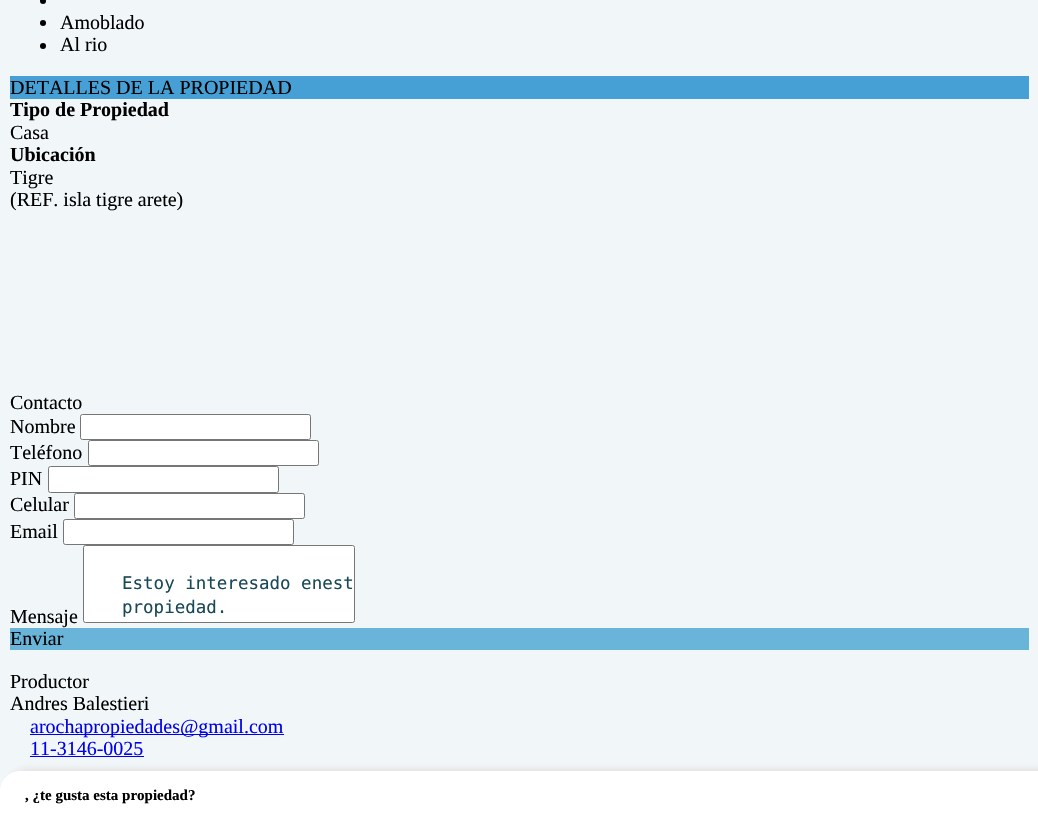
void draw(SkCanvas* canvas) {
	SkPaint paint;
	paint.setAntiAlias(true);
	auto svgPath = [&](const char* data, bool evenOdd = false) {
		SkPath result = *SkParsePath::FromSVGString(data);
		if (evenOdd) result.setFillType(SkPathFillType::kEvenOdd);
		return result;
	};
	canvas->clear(0xfff1f6f8);
	paint.setColor(0xff000000);
	canvas->drawCircle(43, 1, 3, paint);
	canvas->drawCircle(43, 23, 3, paint);
	SkFont f1(fontMgr->matchFamilyStyle("Liberation Serif", SkFontStyle::Normal()), 20);
	f1.setSubpixel(true);
	canvas->drawString("Amoblado", 60, 29, f1, paint);
	canvas->drawCircle(43, 46, 3, paint);
	canvas->drawString("Al rio", 60, 51, f1, paint);
	paint.setColor(0xff46a0d5);
	canvas->drawRect(SkRect::MakeXYWH(10, 76, 1019, 23), paint);
	paint.setColor(0xff000000);
	canvas->drawString("DETALLES DE LA PROPIEDAD", 10, 94, f1, paint);
	SkFont f2(fontMgr->matchFamilyStyle("Liberation Serif", SkFontStyle::Bold()), 20);
	f2.setSubpixel(true);
	canvas->drawString("Tipo de Propiedad", 10, 116, f2, paint);
	canvas->drawString("Casa", 10, 139, f1, paint);
	canvas->drawString("Ubicación", 10, 161, f2, paint);
	canvas->drawString("Tigre", 10, 184, f1, paint);
	canvas->drawString("(REF. isla tigre arete)", 10, 206, f1, paint);
	canvas->drawString("Contacto", 10, 409, f1, paint);
	canvas->drawString("Nombre", 10, 433, f1, paint);
	paint.setColor(0xffffffff);
	canvas->drawRoundRect(SkRect::MakeXYWH(80.5, 414.5, 230, 25), 2, 2, paint);
	paint.setStroke(true);
	paint.setStrokeWidth(1);
	paint.setColor(0xff767676);
	canvas->drawRoundRect(SkRect::MakeXYWH(80.5, 414.5, 230, 25), 2, 2, paint);
	paint.setStroke(false);
	paint.setColor(0xff000000);
	canvas->drawString("Teléfono", 10, 459, f1, paint);
	paint.setColor(0xffffffff);
	canvas->drawRoundRect(SkRect::MakeXYWH(88.5, 440.5, 230, 25), 2, 2, paint);
	paint.setStroke(true);
	paint.setColor(0xff767676);
	canvas->drawRoundRect(SkRect::MakeXYWH(88.5, 440.5, 230, 25), 2, 2, paint);
	paint.setStroke(false);
	paint.setColor(0xff000000);
	canvas->drawString("PIN", 10, 485, f1, paint);
	paint.setColor(0xffffffff);
	canvas->drawRoundRect(SkRect::MakeXYWH(48.5, 466.5, 230, 26), 2, 2, paint);
	paint.setStroke(true);
	paint.setColor(0xff767676);
	canvas->drawRoundRect(SkRect::MakeXYWH(48.5, 466.5, 230, 26), 2, 2, paint);
	paint.setStroke(false);
	paint.setColor(0xff000000);
	canvas->drawString("Celular", 10, 511, f1, paint);
	paint.setColor(0xffffffff);
	canvas->drawRoundRect(SkRect::MakeXYWH(74.5, 493.5, 230, 25), 2, 2, paint);
	paint.setStroke(true);
	paint.setColor(0xff767676);
	canvas->drawRoundRect(SkRect::MakeXYWH(74.5, 493.5, 230, 25), 2, 2, paint);
	paint.setStroke(false);
	paint.setColor(0xff000000);
	canvas->drawString("Email", 10, 538, f1, paint);
	paint.setColor(0xffffffff);
	canvas->drawRoundRect(SkRect::MakeXYWH(63.5, 519.5, 230, 25), 2, 2, paint);
	paint.setStroke(true);
	paint.setColor(0xff767676);
	canvas->drawRoundRect(SkRect::MakeXYWH(63.5, 519.5, 230, 25), 2, 2, paint);
	paint.setStroke(false);
	paint.setColor(0xff000000);
	canvas->drawString("Mensaje", 10, 623, f1, paint);
	paint.setColor(0xffffffff);
	canvas->drawRoundRect(SkRect::MakeXYWH(83.5, 545.5, 271, 77), 2, 2, paint);
	paint.setStroke(true);
	paint.setColor(0xff767676);
	canvas->drawRoundRect(SkRect::MakeXYWH(83.5, 545.5, 271, 77), 2, 2, paint);
	SkFont f3(fontMgr->matchFamilyStyle("DejaVu Sans Mono", SkFontStyle::Normal()), 17.5);
	f3.setSubpixel(true);
	paint.setStroke(false);
	paint.setColor(0xff1a4958);
	canvas->drawString("Estoy interesado enest", 122, 589, f3, paint);
	canvas->drawString("propiedad.", 122, 613, f3, paint);
	paint.setColor(0xff69b5da);
	canvas->drawRect(SkRect::MakeXYWH(10, 628, 1019, 22), paint);
	paint.setColor(0xff000000);
	canvas->drawString("Enviar", 10, 645, f1, paint);
	canvas->drawString("Productor", 10, 688, f1, paint);
	canvas->drawString("Andres Balestieri", 10, 710, f1, paint);
	paint.setColor(0xff0000ee);
	canvas->drawRect(SkRect::MakeXYWH(30, 734, 254, 1), paint);
	canvas->drawString("arochapropiedades@gmail.com", 30, 733, f1, paint);
	canvas->drawString("11-3146-0025", 30, 755, f1, paint);
	canvas->drawRect(SkRect::MakeXYWH(30, 756, 114, 1), paint);
	paint.setColor(0x265c0404);
	paint.setMaskFilter(SkMaskFilter::MakeBlur(kNormal_SkBlurStyle, 5));
	canvas->drawRoundRect(SkRect::MakeXYWH(8, 771, 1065, 49), 20, 20, paint);
	paint.setMaskFilter(nullptr);
	paint.setColor(0xffffffff);
	canvas->drawPath(svgPath("M20 771H1038C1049 771 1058 780 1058 791V820H0V791C0 780 9 771 20 771Z"), paint);
	SkFont f4(fontMgr->matchFamilyStyle("Liberation Serif", SkFontStyle::Bold()), 15);
	f4.setSubpixel(true);
	paint.setColor(0xff000000);
	canvas->drawString(", ¿te gusta esta propiedad?", 25, 800, f4, paint);
}
